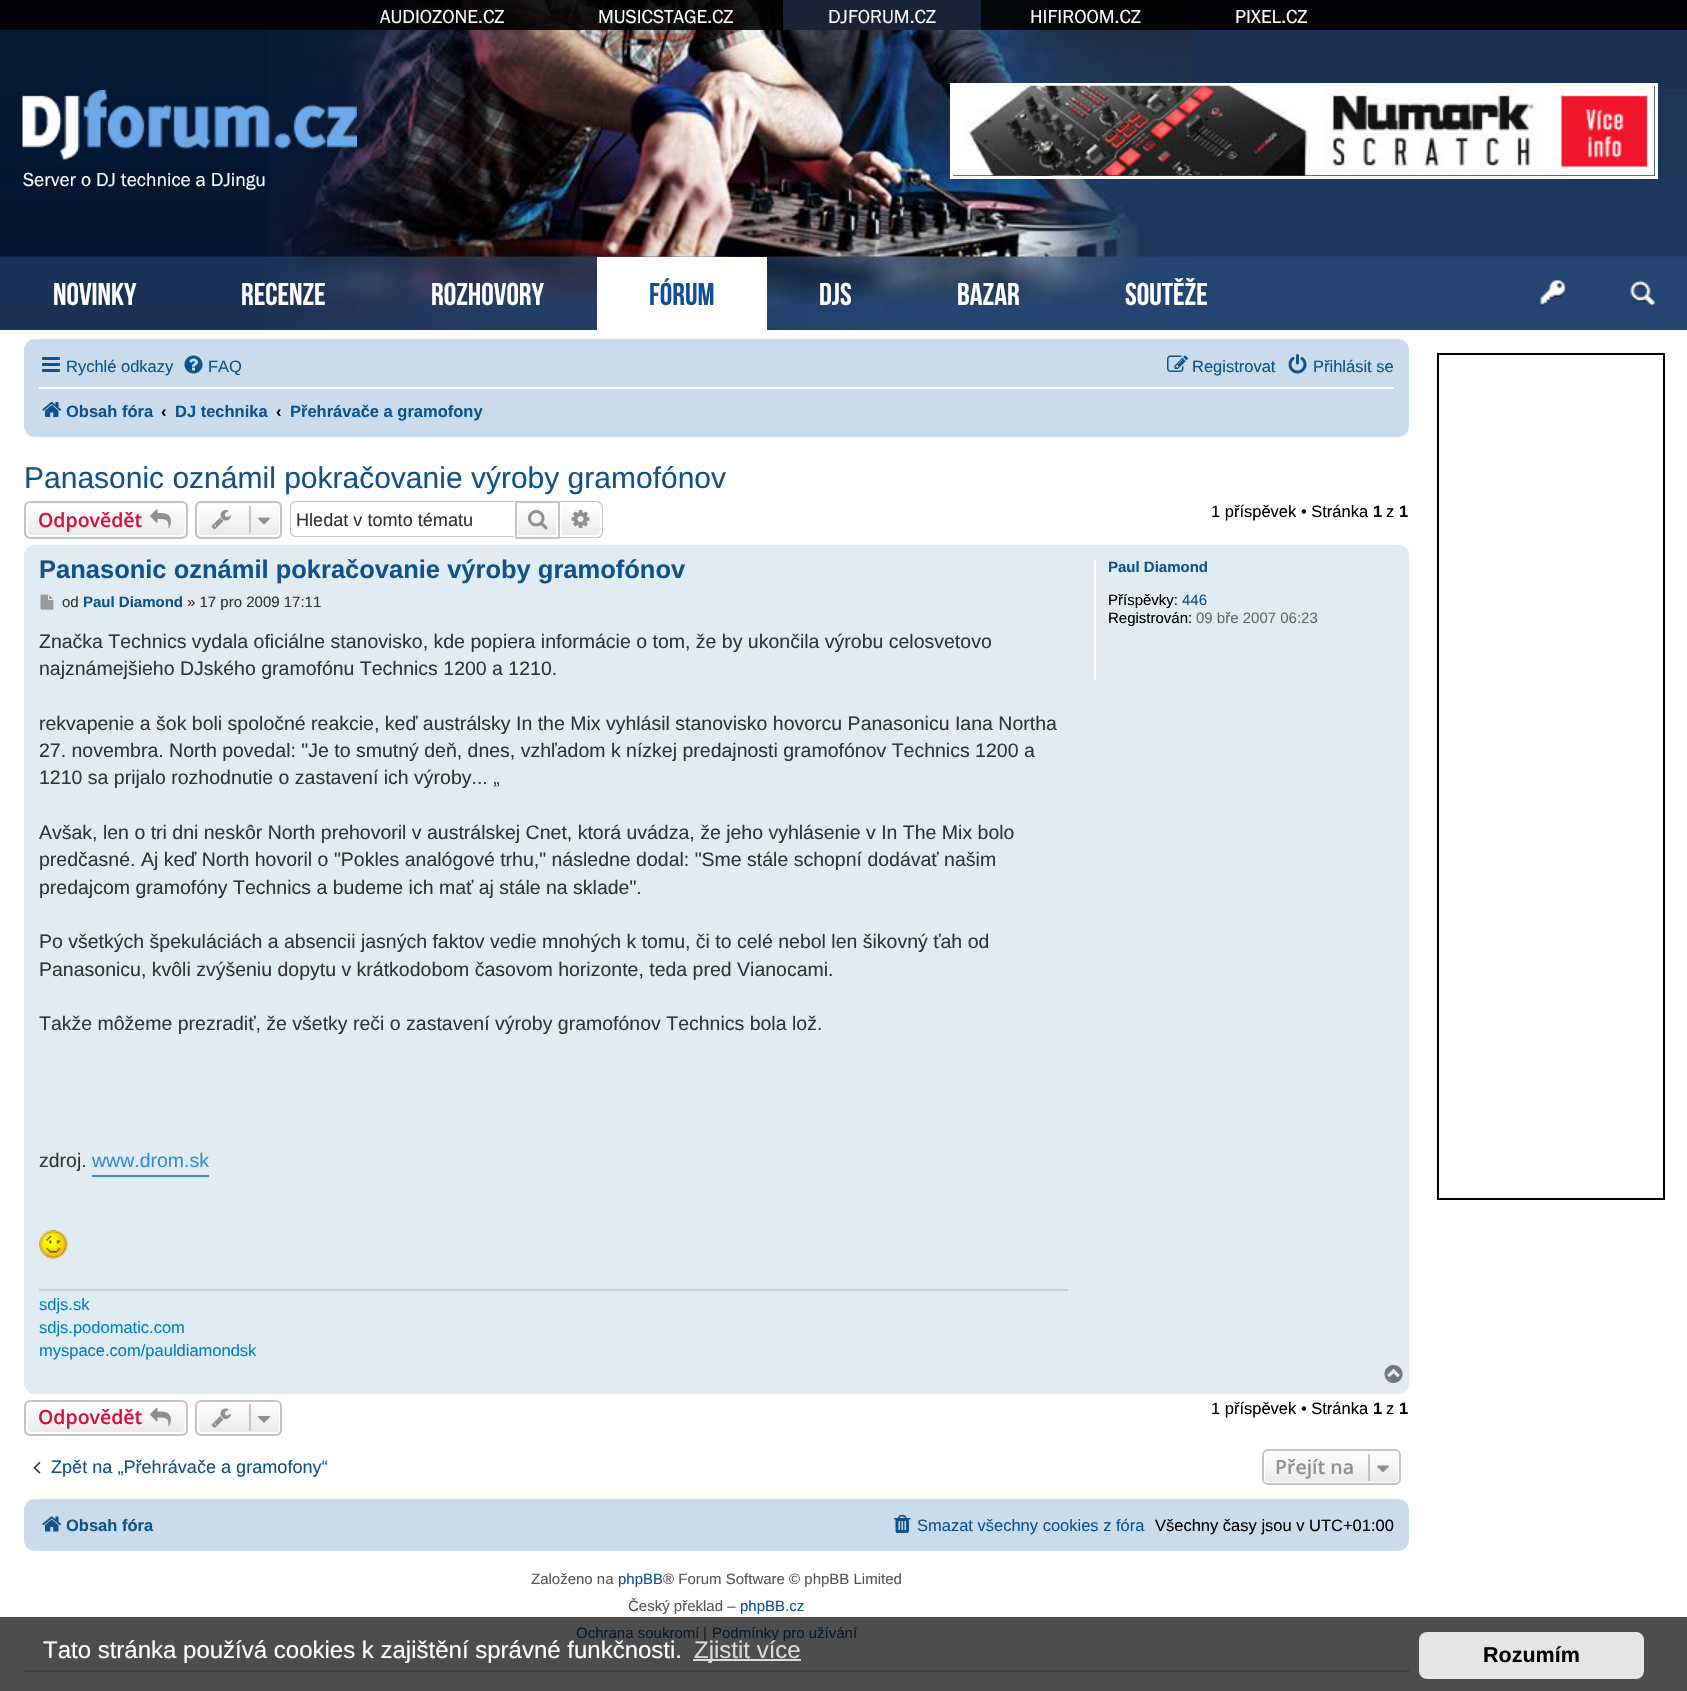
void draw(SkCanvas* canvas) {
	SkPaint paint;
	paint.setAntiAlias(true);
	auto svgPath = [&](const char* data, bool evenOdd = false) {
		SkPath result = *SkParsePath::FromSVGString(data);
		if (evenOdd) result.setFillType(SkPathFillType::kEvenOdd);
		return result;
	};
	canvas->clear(0xffffffff);
	canvas->drawImageRect(SkImages::DeferredFromEncodedData(SkData::MakeFromFileName("img1.png")), SkRect::MakeXYWH(0, 0, 1687, 330), SkSamplingOptions());
	canvas->drawImageRect(SkImages::DeferredFromEncodedData(SkData::MakeFromFileName("img2.png")), SkRect::MakeXYWH(268, 0, 923, 330), SkSamplingOptions());
	paint.setColor(0xe6000000);
	canvas->drawRect(SkRect::MakeXYWH(0, 0, 1687, 30), paint);
	SkFont f1(fontMgr->matchFamilyStyle("Franklin Gothic", SkFontStyle::Normal()), 19.5);
	f1.setSubpixel(true);
	paint.setColor(0xffffffff);
	canvas->drawString("AUDIOZONE.CZ", 380, 23, f1, paint);
	canvas->drawString("MUSICSTAGE.CZ", 598, 23, f1, paint);
	paint.setColor(0xff182338);
	canvas->drawRect(SkRect::MakeXYWH(783, 0, 198, 30), paint);
	paint.setColor(0xffffffff);
	canvas->drawString("DJFORUM.CZ", 828, 23, f1, paint);
	canvas->drawString("HIFIROOM.CZ", 1030, 23, f1, paint);
	canvas->drawString("PIXEL.CZ", 1235, 23, f1, paint);
	paint.setStroke(true);
	paint.setStrokeWidth(3);
	canvas->drawRect(SkRect::MakeXYWH(951.5, 84.5, 705, 93), paint);
	canvas->drawImageRect(SkImages::DeferredFromEncodedData(SkData::MakeFromFileName("img3.png")), SkRect::MakeXYWH(953, 85, 702, 91), SkSamplingOptions());
	canvas->drawImageRect(SkImages::DeferredFromEncodedData(SkData::MakeFromFileName("img4.png")), SkRect::MakeXYWH(22, 90, 335, 71), SkSamplingOptions());
	paint.setStroke(false);
	canvas->drawString("Server o DJ technice a DJingu", 23, 186, f1, paint);
	SkFont f2(fontMgr->matchFamilyStyle("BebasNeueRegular", SkFontStyle::Normal()), 31.5);
	f2.setSubpixel(true);
	canvas->drawString("NOVINKY", 53, 305, f2, paint);
	canvas->drawString("RECENZE", 241, 305, f2, paint);
	canvas->drawString("ROZHOVORY", 431, 305, f2, paint);
	canvas->drawRect(SkRect::MakeXYWH(597, 257, 170, 73), paint);
	paint.setColor(0xff115098);
	canvas->drawString("FÓRUM", 649, 305, f2, paint);
	paint.setColor(0xffffffff);
	canvas->drawString("DJS", 819, 305, f2, paint);
	canvas->drawString("BAZAR", 957, 305, f2, paint);
	canvas->drawString("SOUTĚŽE", 1125, 305, f2, paint);
	canvas->drawImageRect(SkImages::DeferredFromEncodedData(SkData::MakeFromFileName("img5.png")), SkRect::MakeXYWH(1540, 280, 26, 26), SkSamplingOptions());
	canvas->drawImageRect(SkImages::DeferredFromEncodedData(SkData::MakeFromFileName("img6.png")), SkRect::MakeXYWH(1630, 280, 25, 28), SkSamplingOptions());
	paint.setColor(0xff4d4d4d);
	canvas->drawRect(SkRect::MakeXYWH(0, 1617, 1687, 74), paint);
	paint.setColor(0xffcadceb);
	canvas->drawRoundRect(SkRect::MakeXYWH(24, 339, 1385, 98), 11, 11, paint);
	canvas->drawImageRect(SkImages::DeferredFromEncodedData(SkData::MakeFromFileName("img7.png")), SkRect::MakeXYWH(42, 357, 18, 15), SkSamplingOptions());
	SkFont f3(fontMgr->matchFamilyStyle("Liberation Sans", SkFontStyle::Normal()), 16.5);
	f3.setSubpixel(true);
	paint.setColor(0xff105289);
	canvas->drawString("Rychlé odkazy", 66, 372, f3, paint);
	canvas->drawImageRect(SkImages::DeferredFromEncodedData(SkData::MakeFromFileName("img8.png")), SkRect::MakeXYWH(184, 355, 19, 19), SkSamplingOptions());
	canvas->drawString("FAQ", 208, 372, f3, paint);
	canvas->drawImageRect(SkImages::DeferredFromEncodedData(SkData::MakeFromFileName("img9.png")), SkRect::MakeXYWH(1167, 355, 21, 17), SkSamplingOptions());
	canvas->drawString("Registrovat", 1192, 372, f3, paint);
	canvas->drawImageRect(SkImages::DeferredFromEncodedData(SkData::MakeFromFileName("img10.png")), SkRect::MakeXYWH(1288, 354, 19, 20), SkSamplingOptions());
	canvas->drawString("Přihlásit se", 1313, 372, f3, paint);
	paint.setColor(0xffffffff);
	canvas->drawRect(SkRect::MakeXYWH(39, 387, 1355, 2), paint);
	canvas->drawImageRect(SkImages::DeferredFromEncodedData(SkData::MakeFromFileName("img11.png")), SkRect::MakeXYWH(42, 402, 20, 15), SkSamplingOptions());
	SkFont f4(fontMgr->matchFamilyStyle("Liberation Sans", SkFontStyle::Bold()), 16.5);
	f4.setSubpixel(true);
	paint.setColor(0xff105289);
	canvas->drawString("Obsah fóra", 66, 417, f4, paint);
	paint.setColor(0xff000000);
	canvas->drawString("‹", 161, 417, f4, paint);
	paint.setColor(0xff105289);
	canvas->drawString("DJ technika", 175, 417, f4, paint);
	paint.setColor(0xff000000);
	canvas->drawString("‹", 276, 417, f4, paint);
	paint.setColor(0xff105289);
	canvas->drawString("Přehrávače a gramofony", 290, 417, f4, paint);
	SkFont f5(fontMgr->matchFamilyStyle("Liberation Sans", SkFontStyle::Normal()), 30);
	f5.setSubpixel(true);
	canvas->drawString("Panasonic oznámil pokračovanie výroby gramofónov", 24, 488, f5, paint);
	canvas->save();
	canvas->clipPath(svgPath("M30 501H182C185.5 501 188 503.5 188 507V533C188 536.5 185.5 539 182 539H30C26.5 539 24 536.5 24 533V507C24 503.5 26.5 501 30 501Z"), true);
	{
		const SkColor colors[] = {0xffffffff, 0xffe9e9e9};
		const float stops[] = {0, 1};
		const SkPoint ends[] = {{106, 503}, {106, 537}};
		paint.setShader(SkGradientShader::MakeLinear(ends, colors, stops, 2, SkTileMode::kClamp));
		paint.setAlpha(255);
	}
	canvas->drawRect(SkRect::MakeXYWH(24, 503, 164, 34), paint);
	canvas->restore();
	paint.setStroke(true);
	paint.setStrokeWidth(2);
	paint.setShader(nullptr);
	paint.setColor(0xffffffff);
	canvas->drawRoundRect(SkRect::MakeXYWH(27, 504, 158, 32), 4, 4, paint);
	paint.setColor(0xffc7c3bf);
	canvas->drawRoundRect(SkRect::MakeXYWH(25, 502, 162, 36), 5, 5, paint);
	SkFont f6(fontMgr->matchFamilyStyle("Open Sans", SkFontStyle(600, SkFontStyle::kNormal_Width, SkFontStyle::kUpright_Slant)), 19.5);
	f6.setSubpixel(true);
	paint.setStroke(false);
	paint.setColor(0xffd31141);
	canvas->drawString("Odpovědět", 38, 527, f6, paint);
	canvas->drawImageRect(SkImages::DeferredFromEncodedData(SkData::MakeFromFileName("img12.png")), SkRect::MakeXYWH(150, 509, 21, 19), SkSamplingOptions());
	canvas->save();
	canvas->clipPath(svgPath("M201 501H276C279.5 501 282 503.5 282 507V533C282 536.5 279.5 539 276 539H201C197.5 539 195 536.5 195 533V507C195 503.5 197.5 501 201 501Z"), true);
	{
		const SkColor colors[] = {0xffffffff, 0xffe9e9e9};
		const float stops[] = {0, 1};
		const SkPoint ends[] = {{239, 503}, {239, 537}};
		paint.setShader(SkGradientShader::MakeLinear(ends, colors, stops, 2, SkTileMode::kClamp));
		paint.setAlpha(255);
	}
	canvas->drawRect(SkRect::MakeXYWH(195, 503, 87, 34), paint);
	canvas->restore();
	paint.setStroke(true);
	paint.setShader(nullptr);
	paint.setColor(0xffffffff);
	canvas->drawRoundRect(SkRect::MakeXYWH(198, 504, 82, 32), 4, 4, paint);
	paint.setColor(0xffc7c3bf);
	canvas->drawRoundRect(SkRect::MakeXYWH(196, 502, 85, 36), 5, 5, paint);
	canvas->drawImageRect(SkImages::DeferredFromEncodedData(SkData::MakeFromFileName("img13.png")), SkRect::MakeXYWH(211, 510, 20, 20), SkSamplingOptions());
	paint.setStroke(false);
	canvas->drawRect(SkRect::MakeXYWH(249, 506, 2, 27), paint);
	canvas->drawImageRect(SkImages::DeferredFromEncodedData(SkData::MakeFromFileName("img14.png")), SkRect::MakeXYWH(258, 517, 12, 8), SkSamplingOptions());
	canvas->drawPath(svgPath("M296 501H514V537H296C292 537 290 534 290 531V507C290 504 292 501 296 501ZM296 502H514V536H296C293 536 291 533 291 531V507C291 505 293 502 296 502Z", true), paint);
	SkFont f7(fontMgr->matchFamilyStyle("Liberation Sans", SkFontStyle::Normal()), 18.1);
	f7.setSubpixel(true);
	paint.setColor(0xff333333);
	canvas->drawString("Hledat v tomto tématu", 296, 526, f7, paint);
	{
		const SkColor colors[] = {0xffffffff, 0xffe9e9e9};
		const float stops[] = {0, 1};
		const SkPoint ends[] = {{537, 503}, {537, 537}};
		paint.setShader(SkGradientShader::MakeLinear(ends, colors, stops, 2, SkTileMode::kClamp));
		paint.setAlpha(255);
	}
	canvas->drawRect(SkRect::MakeXYWH(518, 507, 38, 28), paint);
	paint.setStroke(true);
	paint.setShader(nullptr);
	paint.setColor(0xffc7c3bf);
	canvas->drawRect(SkRect::MakeXYWH(516, 502, 43, 36), paint);
	canvas->drawImageRect(SkImages::DeferredFromEncodedData(SkData::MakeFromFileName("img15.png")), SkRect::MakeXYWH(528, 510, 20, 20), SkSamplingOptions());
	paint.setStroke(false);
	{
		const SkColor colors[] = {0xffffffff, 0xffe9e9e9};
		const float stops[] = {0, 1};
		const SkPoint ends[] = {{581, 503}, {581, 537}};
		paint.setShader(SkGradientShader::MakeLinear(ends, colors, stops, 2, SkTileMode::kClamp));
		paint.setAlpha(255);
	}
	canvas->drawPath(svgPath("M561 504H597C599 504 601 506 601 508V532C601 534 599 536 597 536H561Z"), paint);
	paint.setStroke(true);
	paint.setShader(nullptr);
	paint.setColor(0xffffffff);
	canvas->drawPath(svgPath("M561 504H597C599 504 601 506 601 508V532C601 534 599 536 597 536H561Z"), paint);
	paint.setStroke(false);
	paint.setColor(0xffc7c3bf);
	canvas->drawPath(svgPath("M560 501H597C600 501 603 504 603 507V532C603 536 600 538 597 538H560ZM560 502H597C599 502 602 505 602 507V532C602 535 599 537 597 537H560Z", true), paint);
	canvas->drawImageRect(SkImages::DeferredFromEncodedData(SkData::MakeFromFileName("img16.png")), SkRect::MakeXYWH(571, 510, 19, 18), SkSamplingOptions());
	paint.setColor(0xff000000);
	canvas->drawString("1 příspěvek • Stránka", 1211, 517, f3, paint);
	canvas->drawString("1", 1373, 517, f4, paint);
	canvas->drawString("z", 1386, 517, f3, paint);
	canvas->drawString("1", 1399, 517, f4, paint);
	paint.setColor(0xffe1ebf2);
	canvas->drawRoundRect(SkRect::MakeXYWH(24, 545, 1385, 849), 11, 11, paint);
	SkFont f8(fontMgr->matchFamilyStyle("Liberation Sans", SkFontStyle::Bold()), 25.5);
	f8.setSubpixel(true);
	paint.setColor(0xff105289);
	canvas->drawString("Panasonic oznámil pokračovanie výroby gramofónov", 39, 578, f8, paint);
	canvas->drawImageRect(SkImages::DeferredFromEncodedData(SkData::MakeFromFileName("img17.png")), SkRect::MakeXYWH(40, 594, 14, 16), SkSamplingOptions());
	SkFont f9(fontMgr->matchFamilyStyle("Liberation Sans", SkFontStyle::Normal()), 15);
	f9.setSubpixel(true);
	paint.setColor(0xff333333);
	canvas->drawString("od", 62, 607, f9, paint);
	SkFont f10(fontMgr->matchFamilyStyle("Liberation Sans", SkFontStyle::Bold()), 15);
	f10.setSubpixel(true);
	paint.setColor(0xff105289);
	canvas->drawString("Paul Diamond", 83, 607, f10, paint);
	paint.setColor(0xff333333);
	canvas->drawString("» 17 pro 2009 17:11", 187, 607, f9, paint);
	SkFont f11(fontMgr->matchFamilyStyle("Liberation Sans", SkFontStyle::Normal()), 19.5);
	f11.setSubpixel(true);
	canvas->drawString("Značka Technics vydala oficiálne stanovisko, kde popiera informácie o tom, že by ukončila výrobu celosvetovo", 39, 648, f11, paint);
	canvas->drawString("najznámejšieho DJského gramofónu Technics 1200 a 1210.", 39, 675, f11, paint);
	canvas->drawString("rekvapenie a šok boli spoločné reakcie, keď austrálsky In the Mix vyhlásil stanovisko hovorcu Panasonicu Iana Northa", 39, 730, f11, paint);
	canvas->drawString("27. novembra. North povedal: \"Je to smutný deň, dnes, vzhľadom k nízkej predajnosti gramofónov Technics 1200 a", 39, 757, f11, paint);
	canvas->drawString("1210 sa prijalo rozhodnutie o zastavení ich výroby... „", 39, 784, f11, paint);
	canvas->drawString("Avšak, len o tri dni neskôr North prehovoril v austrálskej Cnet, ktorá uvádza, že jeho vyhlásenie v In The Mix bolo", 39, 839, f11, paint);
	canvas->drawString("predčasné. Aj keď North hovoril o \"Pokles analógové trhu,\" následne dodal: \"Sme stále schopní dodávať našim", 39, 866, f11, paint);
	canvas->drawString("predajcom gramofóny Technics a budeme ich mať aj stále na sklade\".", 39, 894, f11, paint);
	canvas->drawString("Po všetkých špekuláciách a absencii jasných faktov vedie mnohých k tomu, či to celé nebol len šikovný ťah od", 39, 948, f11, paint);
	canvas->drawString("Panasonicu, kvôli zvýšeniu dopytu v krátkodobom časovom horizonte, teda pred Vianocami.", 39, 976, f11, paint);
	canvas->drawString("Takže môžeme prezradiť, že všetky reči o zastavení výroby gramofónov Technics bola lož.", 39, 1030, f11, paint);
	canvas->drawString("zdroj.", 39, 1167, f11, paint);
	paint.setColor(0xff368ad2);
	canvas->drawRect(SkRect::MakeXYWH(92, 1175, 117, 2), paint);
	canvas->drawString("www.drom.sk", 92, 1167, f11, paint);
	canvas->drawImageRect(SkImages::DeferredFromEncodedData(SkData::MakeFromFileName("img18.png")), SkRect::MakeXYWH(39, 1230, 29, 29), SkSamplingOptions());
	paint.setColor(0xffcccccc);
	canvas->drawRect(SkRect::MakeXYWH(39, 1289, 1029, 2), paint);
	paint.setColor(0xff0080bf);
	canvas->drawString("sdjs.sk", 39, 1310, f3, paint);
	canvas->drawString("sdjs.podomatic.com", 39, 1333, f3, paint);
	canvas->drawString("myspace.com/pauldiamondsk", 39, 1356, f3, paint);
	paint.setColor(0xffffffff);
	canvas->drawRect(SkRect::MakeXYWH(1094, 560, 2, 120), paint);
	paint.setColor(0xff105289);
	canvas->drawString("Paul Diamond", 1108, 572, f10, paint);
	paint.setColor(0xff000000);
	canvas->drawString("Příspěvky:", 1108, 605, f9, paint);
	paint.setColor(0xff105289);
	canvas->drawString("446", 1182, 605, f9, paint);
	paint.setColor(0xff000000);
	canvas->drawString("Registrován:", 1108, 623, f9, paint);
	paint.setColor(0xff666666);
	canvas->drawString("09 bře 2007 06:23", 1196, 623, f9, paint);
	canvas->drawImageRect(SkImages::DeferredFromEncodedData(SkData::MakeFromFileName("img19.png")), SkRect::MakeXYWH(1384, 1365, 19, 18), SkSamplingOptions());
	canvas->save();
	canvas->clipPath(svgPath("M30 1400H182C185.5 1400 188 1402.5 188 1406V1430C188 1433.5 185.5 1436 182 1436H30C26.5 1436 24 1433.5 24 1430V1406C24 1402.5 26.5 1400 30 1400Z"), true);
	{
		const SkColor colors[] = {0xffffffff, 0xffe9e9e9};
		const float stops[] = {0, 1};
		const SkPoint ends[] = {{106, 1401}, {106, 1434}};
		paint.setShader(SkGradientShader::MakeLinear(ends, colors, stops, 2, SkTileMode::kClamp));
		paint.setAlpha(255);
	}
	canvas->drawRect(SkRect::MakeXYWH(24, 1401, 164, 33), paint);
	canvas->restore();
	paint.setStroke(true);
	paint.setShader(nullptr);
	paint.setColor(0xffffffff);
	canvas->drawRoundRect(SkRect::MakeXYWH(27, 1402, 158, 31), 4, 4, paint);
	paint.setColor(0xffc7c3bf);
	canvas->drawRoundRect(SkRect::MakeXYWH(25, 1401, 162, 34), 5, 5, paint);
	paint.setStroke(false);
	paint.setColor(0xffd31141);
	canvas->drawString("Odpovědět", 38, 1424, f6, paint);
	canvas->drawImageRect(SkImages::DeferredFromEncodedData(SkData::MakeFromFileName("img20.png")), SkRect::MakeXYWH(150, 1407, 21, 20), SkSamplingOptions());
	canvas->save();
	canvas->clipPath(svgPath("M201 1400H276C279.5 1400 282 1402.5 282 1406V1430C282 1433.5 279.5 1436 276 1436H201C197.5 1436 195 1433.5 195 1430V1406C195 1402.5 197.5 1400 201 1400Z"), true);
	{
		const SkColor colors[] = {0xffffffff, 0xffe9e9e9};
		const float stops[] = {0, 1};
		const SkPoint ends[] = {{239, 1401}, {239, 1434}};
		paint.setShader(SkGradientShader::MakeLinear(ends, colors, stops, 2, SkTileMode::kClamp));
		paint.setAlpha(255);
	}
	canvas->drawRect(SkRect::MakeXYWH(195, 1401, 87, 33), paint);
	canvas->restore();
	paint.setStroke(true);
	paint.setShader(nullptr);
	paint.setColor(0xffffffff);
	canvas->drawRoundRect(SkRect::MakeXYWH(198, 1402, 82, 31), 4, 4, paint);
	paint.setColor(0xffc7c3bf);
	canvas->drawRoundRect(SkRect::MakeXYWH(196, 1401, 85, 34), 5, 5, paint);
	canvas->drawImageRect(SkImages::DeferredFromEncodedData(SkData::MakeFromFileName("img21.png")), SkRect::MakeXYWH(211, 1408, 20, 20), SkSamplingOptions());
	paint.setStroke(false);
	canvas->drawRect(SkRect::MakeXYWH(249, 1404, 2, 27), paint);
	canvas->drawImageRect(SkImages::DeferredFromEncodedData(SkData::MakeFromFileName("img22.png")), SkRect::MakeXYWH(258, 1416, 12, 7), SkSamplingOptions());
	paint.setColor(0xff000000);
	canvas->drawString("1 příspěvek • Stránka", 1211, 1414, f3, paint);
	canvas->drawString("1", 1373, 1414, f4, paint);
	canvas->drawString("z", 1386, 1414, f3, paint);
	canvas->drawString("1", 1399, 1414, f4, paint);
	canvas->drawImageRect(SkImages::DeferredFromEncodedData(SkData::MakeFromFileName("img23.png")), SkRect::MakeXYWH(33, 1462, 8, 12), SkSamplingOptions());
	paint.setColor(0xff105289);
	canvas->drawString("Zpět na „Přehrávače a gramofony“", 51, 1473, f7, paint);
	canvas->save();
	canvas->clipPath(svgPath("M1268 1449H1395C1398.5 1449 1401 1451.5 1401 1455V1479C1401 1482.5 1398.5 1485 1395 1485H1268C1264.5 1485 1262 1482.5 1262 1479V1455C1262 1451.5 1264.5 1449 1268 1449Z"), true);
	{
		const SkColor colors[] = {0xffffffff, 0xffe9e9e9};
		const float stops[] = {0, 1};
		const SkPoint ends[] = {{1331, 1451}, {1331, 1484}};
		paint.setShader(SkGradientShader::MakeLinear(ends, colors, stops, 2, SkTileMode::kClamp));
		paint.setAlpha(255);
	}
	canvas->drawRect(SkRect::MakeXYWH(1262, 1451, 139, 33), paint);
	canvas->restore();
	paint.setStroke(true);
	paint.setShader(nullptr);
	paint.setColor(0xffffffff);
	canvas->drawRoundRect(SkRect::MakeXYWH(1264, 1452, 135, 31), 4, 4, paint);
	paint.setColor(0xffc7c3bf);
	canvas->drawRoundRect(SkRect::MakeXYWH(1263, 1450, 137, 34), 5, 5, paint);
	paint.setStroke(false);
	paint.setColor(0xff8f8f8f);
	canvas->drawString("Přejít na", 1275, 1474, f6, paint);
	paint.setColor(0xffc7c3bf);
	canvas->drawRect(SkRect::MakeXYWH(1368, 1454, 2, 27), paint);
	canvas->drawImageRect(SkImages::DeferredFromEncodedData(SkData::MakeFromFileName("img24.png")), SkRect::MakeXYWH(1377, 1465, 12, 8), SkSamplingOptions());
	paint.setColor(0xffcadceb);
	canvas->drawRoundRect(SkRect::MakeXYWH(24, 1499, 1385, 52), 11, 11, paint);
	canvas->drawImageRect(SkImages::DeferredFromEncodedData(SkData::MakeFromFileName("img25.png")), SkRect::MakeXYWH(42, 1516, 20, 16), SkSamplingOptions());
	paint.setColor(0xff105289);
	canvas->drawString("Obsah fóra", 66, 1531, f4, paint);
	canvas->drawImageRect(SkImages::DeferredFromEncodedData(SkData::MakeFromFileName("img26.png")), SkRect::MakeXYWH(894, 1515, 17, 18), SkSamplingOptions());
	canvas->drawString("Smazat všechny cookies z fóra", 917, 1531, f3, paint);
	paint.setColor(0xff000000);
	canvas->drawString("Všechny časy jsou v UTC+01:00", 1155, 1531, f3, paint);
	paint.setColor(0xff555555);
	canvas->drawString("Založeno na", 531, 1584, f9, paint);
	paint.setColor(0xff105289);
	canvas->drawString("phpBB", 618, 1584, f9, paint);
	paint.setColor(0xff555555);
	canvas->drawString("® Forum Software © phpBB Limited", 663, 1584, f9, paint);
	canvas->drawString("Český překlad –", 628, 1611, f9, paint);
	paint.setColor(0xff105289);
	canvas->drawString("phpBB.cz", 740, 1611, f9, paint);
	paint.setColor(0xff051929);
	canvas->drawString("Ochrana soukromí", 576, 1638, f9, paint);
	paint.setColor(0xff1a1a1a);
	canvas->drawString("|", 703, 1638, f9, paint);
	paint.setColor(0xff051929);
	canvas->drawString("Podmínky pro užívání", 712, 1638, f9, paint);
	paint.setColor(0xff3d3d3d);
	canvas->drawRect(SkRect::MakeXYWH(24, 1670, 1385, 2), paint);
	paint.setStroke(true);
	paint.setColor(0xff000000);
	canvas->drawRect(SkRect::MakeXYWH(1438, 354, 226, 845), paint);
	SkFont f12(fontMgr->matchFamilyStyle("Liberation Sans", SkFontStyle::Normal()), 24);
	f12.setSubpixel(true);
	paint.setStroke(false);
	paint.setColor(0xffffffff);
	canvas->drawString("Tato stránka používá cookies k zajištění správné funkčnosti.", 43, 1658, f12, paint);
	paint.setColor(0xffdbdbdb);
	canvas->drawRect(SkRect::MakeXYWH(693, 1659, 108, 2), paint);
	canvas->drawString("Zjistit více", 694, 1658, f12, paint);
	paint.setColor(0xffe5e5e5);
	canvas->drawRoundRect(SkRect::MakeXYWH(1419, 1632, 225, 47), 8, 8, paint);
	SkFont f13(fontMgr->matchFamilyStyle("Liberation Sans", SkFontStyle::Bold()), 21.5);
	f13.setSubpixel(true);
	paint.setColor(0xff000000);
	canvas->drawString("Rozumím", 1483, 1662, f13, paint);
}
